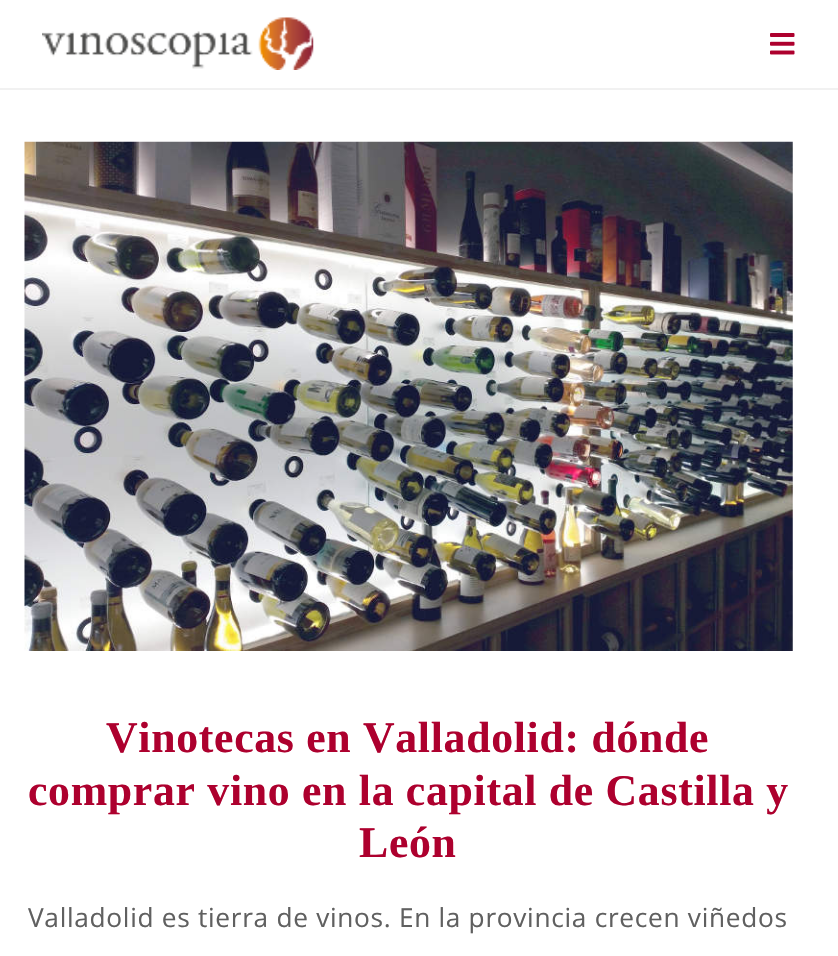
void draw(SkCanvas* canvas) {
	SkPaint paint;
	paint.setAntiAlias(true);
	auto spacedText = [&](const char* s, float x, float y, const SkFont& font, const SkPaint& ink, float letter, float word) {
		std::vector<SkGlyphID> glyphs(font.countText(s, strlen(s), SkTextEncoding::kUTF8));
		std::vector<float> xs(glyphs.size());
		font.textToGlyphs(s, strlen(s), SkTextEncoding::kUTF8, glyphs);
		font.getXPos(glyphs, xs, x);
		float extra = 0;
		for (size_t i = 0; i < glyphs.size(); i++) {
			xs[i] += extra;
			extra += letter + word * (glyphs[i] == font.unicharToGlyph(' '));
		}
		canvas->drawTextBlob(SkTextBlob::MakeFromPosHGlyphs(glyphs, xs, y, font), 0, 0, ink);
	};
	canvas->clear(0xffffffff);
	paint.setColor(0xfff1f1f1);
	canvas->drawRect(SkRect::MakeXYWH(0, 88, 838, 2), paint);
	canvas->drawImageRect(SkImages::DeferredFromEncodedData(SkData::MakeFromFileName("img1.png")), SkRect::MakeXYWH(42, 17, 272, 53), SkSamplingOptions());
	canvas->drawImageRect(SkImages::DeferredFromEncodedData(SkData::MakeFromFileName("img2.png")), SkRect::MakeXYWH(770, 33, 25, 22), SkSamplingOptions());
	canvas->drawImageRect(SkImages::DeferredFromEncodedData(SkData::MakeFromFileName("img3.png")), SkRect::MakeXYWH(24, 141, 769, 510), SkSamplingOptions());
	SkFont f1(fontMgr->matchFamilyStyle("Tinos", SkFontStyle::Bold()), 43.75);
	f1.setSubpixel(true);
	paint.setColor(0xffad002e);
	spacedText("Vinotecas en Valladolid: dónde", 106, 752, f1, paint, 0.7, 0);
	spacedText("comprar vino en la capital de Castilla y", 28, 805, f1, paint, 0.7, 0);
	spacedText("León", 359, 857, f1, paint, 0.7, 0);
	SkFont f2(fontMgr->matchFamilyStyle("Open Sans", SkFontStyle::Normal()), 26.25);
	f2.setSubpixel(true);
	paint.setColor(0xff606060);
	spacedText("Valladolid es tierra de vinos. En la provincia crecen viñedos", 28, 927, f2, paint, 0.7, 0);
}
